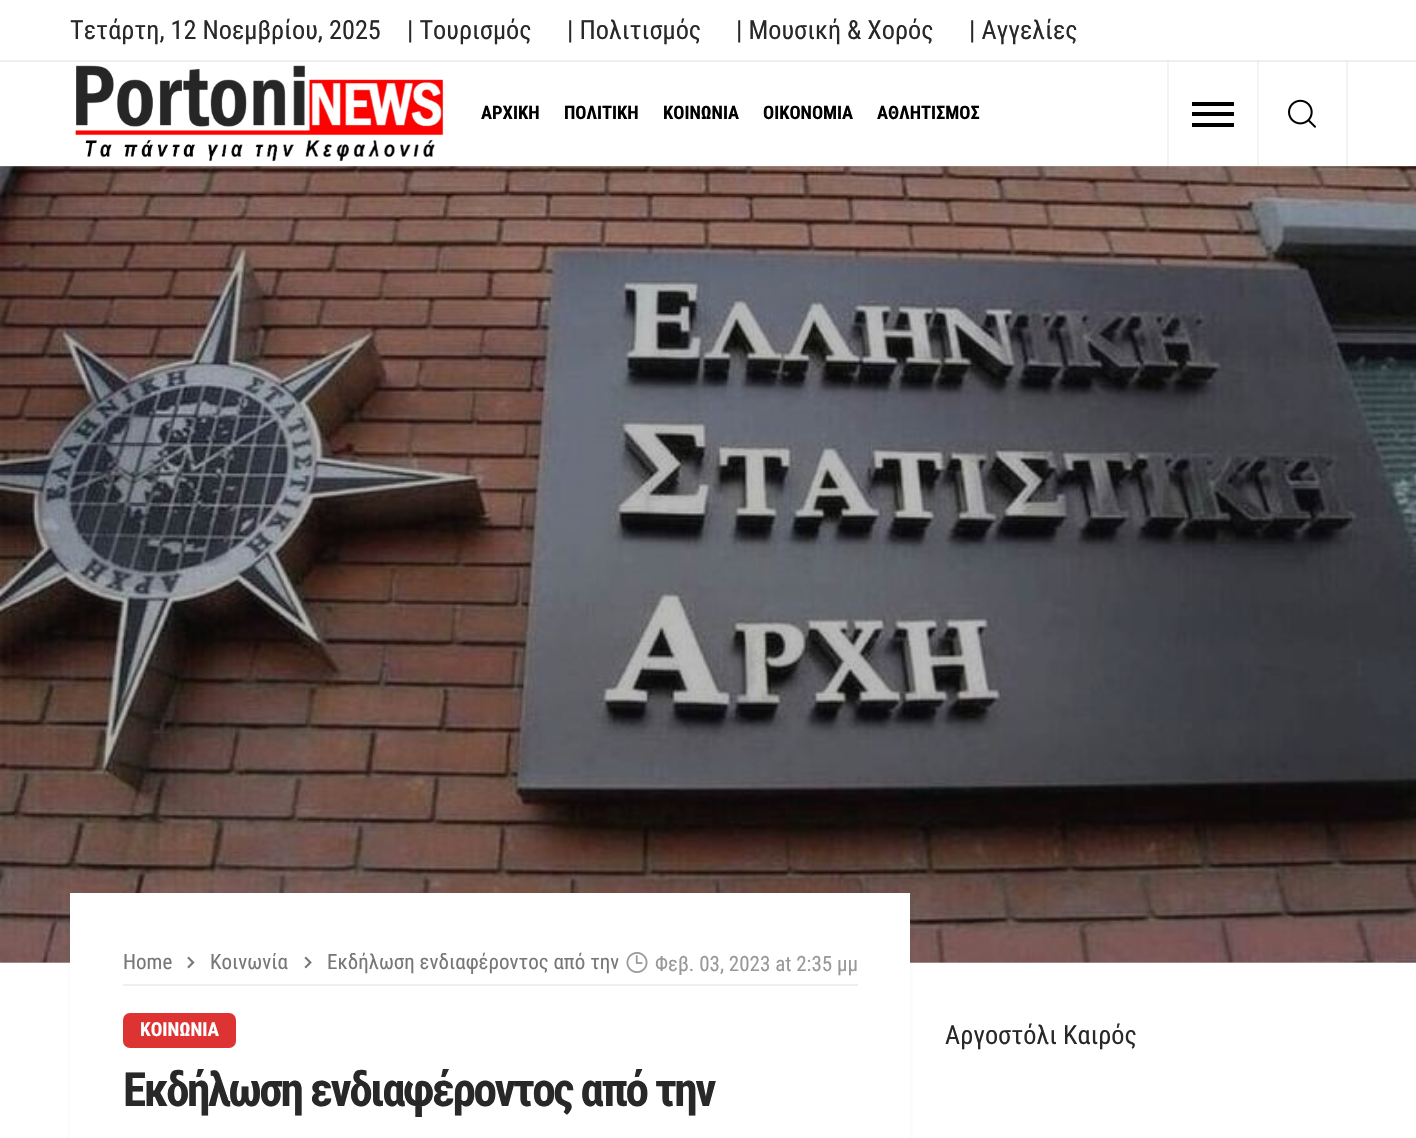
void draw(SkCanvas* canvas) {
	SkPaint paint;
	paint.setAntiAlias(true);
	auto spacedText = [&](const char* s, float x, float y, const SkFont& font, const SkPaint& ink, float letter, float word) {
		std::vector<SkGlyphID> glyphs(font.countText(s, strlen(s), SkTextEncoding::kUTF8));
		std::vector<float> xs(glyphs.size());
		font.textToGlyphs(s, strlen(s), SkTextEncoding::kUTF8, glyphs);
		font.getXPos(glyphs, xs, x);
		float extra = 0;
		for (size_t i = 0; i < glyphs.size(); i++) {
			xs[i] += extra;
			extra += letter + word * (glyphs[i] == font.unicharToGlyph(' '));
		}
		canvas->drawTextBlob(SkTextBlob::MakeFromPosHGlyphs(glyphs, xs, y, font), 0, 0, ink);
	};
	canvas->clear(0xffffffff);
	paint.setColor(0xffbbbbbb);
	canvas->drawRect(SkRect::MakeXYWH(0, 166, 1416, 797), paint);
	canvas->drawImageRect(SkImages::DeferredFromEncodedData(SkData::MakeFromFileName("img3.png")), SkRect::MakeXYWH(0, 166, 1416, 797), SkSamplingOptions());
	paint.setColor(0x0d1c1c1c);
	canvas->drawRect(SkRect::MakeXYWH(1346, 61, 2, 111), paint);
	canvas->drawRect(SkRect::MakeXYWH(1167, 61, 2, 111), paint);
	paint.setColor(0xfff4f4f4);
	canvas->drawRect(SkRect::MakeXYWH(1257, 61, 2, 105), paint);
	paint.setColor(0x121c1c1c);
	canvas->drawRect(SkRect::MakeXYWH(0, 60, 1416, 2), paint);
	SkFont f1(fontMgr->matchFamilyStyle("Roboto Condensed", SkFontStyle::Normal()), 26.25);
	f1.setSubpixel(true);
	paint.setColor(0xff282828);
	canvas->drawString("Τετάρτη, 12 Νοεμβρίου, 2025", 70, 39, f1, paint);
	canvas->drawString("| Τουρισμός", 407, 39, f1, paint);
	canvas->drawString("| Πολιτισμός", 567, 39, f1, paint);
	canvas->drawString("| Μουσική & Χορός", 736, 39, f1, paint);
	canvas->drawString("| Αγγελίες", 969, 39, f1, paint);
	canvas->drawImageRect(SkImages::DeferredFromEncodedData(SkData::MakeFromFileName("img1.png")), SkRect::MakeXYWH(75, 65, 369, 97), SkSamplingOptions());
	SkFont f2(fontMgr->matchFamilyStyle("Roboto Condensed", SkFontStyle::Bold()), 18.5);
	f2.setSubpixel(true);
	paint.setColor(0xff000000);
	canvas->drawString("ΑΡΧΙΚΗ", 481, 119, f2, paint);
	canvas->drawString("ΠΟΛΙΤΙΚΗ", 564, 119, f2, paint);
	canvas->drawString("ΚΟΙΝΩΝΙΑ", 663, 119, f2, paint);
	canvas->drawString("ΟΙΚΟΝΟΜΙΑ", 763, 119, f2, paint);
	canvas->drawString("ΑΘΛΗΤΙΣΜΟΣ", 877, 119, f2, paint);
	canvas->drawRect(SkRect::MakeXYWH(1192, 112, 42, 4), paint);
	canvas->drawRect(SkRect::MakeXYWH(1192, 102, 42, 4), paint);
	canvas->drawRect(SkRect::MakeXYWH(1192, 123, 42, 4), paint);
	canvas->drawImageRect(SkImages::DeferredFromEncodedData(SkData::MakeFromFileName("img2.png")), SkRect::MakeXYWH(1288, 99, 28, 29), SkSamplingOptions());
	paint.setColor(0x0d1c1c1c);
	paint.setMaskFilter(SkMaskFilter::MakeBlur(kNormal_SkBlurStyle, 2.5));
	canvas->drawRect(SkRect::MakeXYWH(70, 894, 840, 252), paint);
	paint.setMaskFilter(nullptr);
	paint.setColor(0xffffffff);
	canvas->drawRect(SkRect::MakeXYWH(70, 893, 840, 245), paint);
	paint.setColor(0xffefefef);
	canvas->drawRect(SkRect::MakeXYWH(123, 984, 735, 2), paint);
	SkFont f3(fontMgr->matchFamilyStyle("Roboto Condensed", SkFontStyle::Normal()), 21);
	f3.setSubpixel(true);
	paint.setColor(0xff777777);
	canvas->drawString("Home", 123, 969, f3, paint);
	canvas->drawImageRect(SkImages::DeferredFromEncodedData(SkData::MakeFromFileName("img4.png")), SkRect::MakeXYWH(187, 956, 8, 13), SkSamplingOptions());
	canvas->drawString("Κοινωνία", 210, 969, f3, paint);
	canvas->drawImageRect(SkImages::DeferredFromEncodedData(SkData::MakeFromFileName("img5.png")), SkRect::MakeXYWH(304, 956, 8, 13), SkSamplingOptions());
	canvas->drawString("Εκδήλωση ενδιαφέροντος από την", 327, 969, f3, paint);
	paint.setColor(0xffffffff);
	canvas->drawRect(SkRect::MakeXYWH(618, 957, 1, 2), paint);
	canvas->drawImageRect(SkImages::DeferredFromEncodedData(SkData::MakeFromFileName("img6.png")), SkRect::MakeXYWH(626, 952, 22, 21), SkSamplingOptions());
	paint.setColor(0xff999999);
	canvas->drawString("Φεβ. 03, 2023 at 2:35 μμ", 655, 971, f3, paint);
	paint.setColor(0xffdd3333);
	canvas->drawRoundRect(SkRect::MakeXYWH(123, 1013, 113, 35), 7, 7, paint);
	SkFont f4(fontMgr->matchFamilyStyle("Roboto Condensed", SkFontStyle::Bold()), 19.25);
	f4.setSubpixel(true);
	paint.setColor(0xffffffff);
	canvas->drawString("ΚΟΙΝΩΝΙΑ", 140, 1036, f4, paint);
	SkFont f5(fontMgr->matchFamilyStyle("Roboto Condensed", SkFontStyle::Bold()), 47.25);
	f5.setSubpixel(true);
	paint.setColor(0xff282828);
	spacedText("Εκδήλωση ενδιαφέροντος από την", 123, 1106, f5, paint, -2.5, 0);
	canvas->drawString("Αργοστόλι Καιρός", 945, 1044, f1, paint);
}
